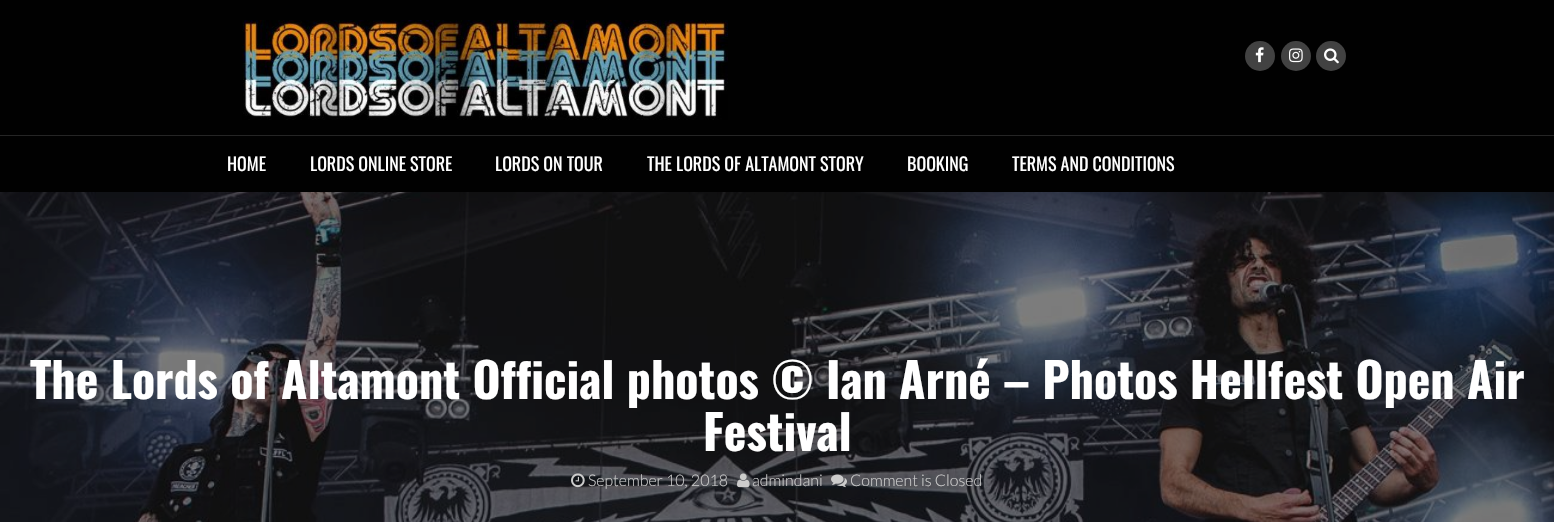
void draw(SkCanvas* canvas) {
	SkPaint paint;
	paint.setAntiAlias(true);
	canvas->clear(0xffffffff);
	paint.setColor(0xff010101);
	canvas->drawRect(SkRect::MakeXYWH(0, 0, 1554, 192), paint);
	paint.setColor(0xff252525);
	canvas->drawRect(SkRect::MakeXYWH(0, 135, 1554, 1), paint);
	canvas->drawImageRect(SkImages::DeferredFromEncodedData(SkData::MakeFromFileName("img1.png")), SkRect::MakeXYWH(242, 20, 486, 100), SkSamplingOptions());
	paint.setColor(0xff424242);
	canvas->drawCircle(1260, 56, 15, paint);
	canvas->drawImageRect(SkImages::DeferredFromEncodedData(SkData::MakeFromFileName("img2.png")), SkRect::MakeXYWH(1255, 47, 9, 16), SkSamplingOptions());
	canvas->drawCircle(1296, 56, 15, paint);
	canvas->drawImageRect(SkImages::DeferredFromEncodedData(SkData::MakeFromFileName("img3.png")), SkRect::MakeXYWH(1289, 48, 14, 15), SkSamplingOptions());
	canvas->drawCircle(1331, 56, 15, paint);
	canvas->drawImageRect(SkImages::DeferredFromEncodedData(SkData::MakeFromFileName("img4.png")), SkRect::MakeXYWH(1324, 48, 15, 16), SkSamplingOptions());
	SkFont f1(fontMgr->matchFamilyStyle("Oswald", SkFontStyle::Normal()), 18);
	f1.setSubpixel(true);
	paint.setColor(0xffffffff);
	canvas->drawString("HOME", 227, 171, f1, paint);
	canvas->drawString("LORDS ONLINE STORE", 310, 171, f1, paint);
	canvas->drawString("LORDS ON TOUR", 495, 171, f1, paint);
	canvas->drawString("THE LORDS OF ALTAMONT STORY", 647, 171, f1, paint);
	canvas->drawString("BOOKING", 907, 171, f1, paint);
	canvas->drawString("TERMS AND CONDITIONS", 1012, 171, f1, paint);
	canvas->drawImageRect(SkImages::DeferredFromEncodedData(SkData::MakeFromFileName("img5.png")), SkRect::MakeXYWH(0, 192, 1554, 330), SkSamplingOptions());
	SkFont f2(fontMgr->matchFamilyStyle("Oswald", SkFontStyle::Bold()), 48);
	f2.setSubpixel(true);
	canvas->drawString("The Lords of Altamont Official photos © Ian Arné – Photos Hellfest Open Air", 30, 399, f2, paint);
	canvas->drawString("Festival", 703, 451, f2, paint);
	canvas->drawImageRect(SkImages::DeferredFromEncodedData(SkData::MakeFromFileName("img6.png")), SkRect::MakeXYWH(571, 473, 14, 15), SkSamplingOptions());
	SkFont f3(fontMgr->matchFamilyStyle("Lato", SkFontStyle(300, SkFontStyle::kNormal_Width, SkFontStyle::kUpright_Slant)), 16);
	f3.setSubpixel(true);
	paint.setColor(0xffcccccc);
	canvas->drawString("September 10, 2018", 588, 486, f3, paint);
	canvas->drawImageRect(SkImages::DeferredFromEncodedData(SkData::MakeFromFileName("img7.png")), SkRect::MakeXYWH(737, 473, 13, 15), SkSamplingOptions());
	canvas->drawString("admindani", 752, 486, f3, paint);
	canvas->drawImageRect(SkImages::DeferredFromEncodedData(SkData::MakeFromFileName("img8.png")), SkRect::MakeXYWH(831, 474, 16, 14), SkSamplingOptions());
	canvas->drawString("Comment is Closed", 850, 486, f3, paint);
}
